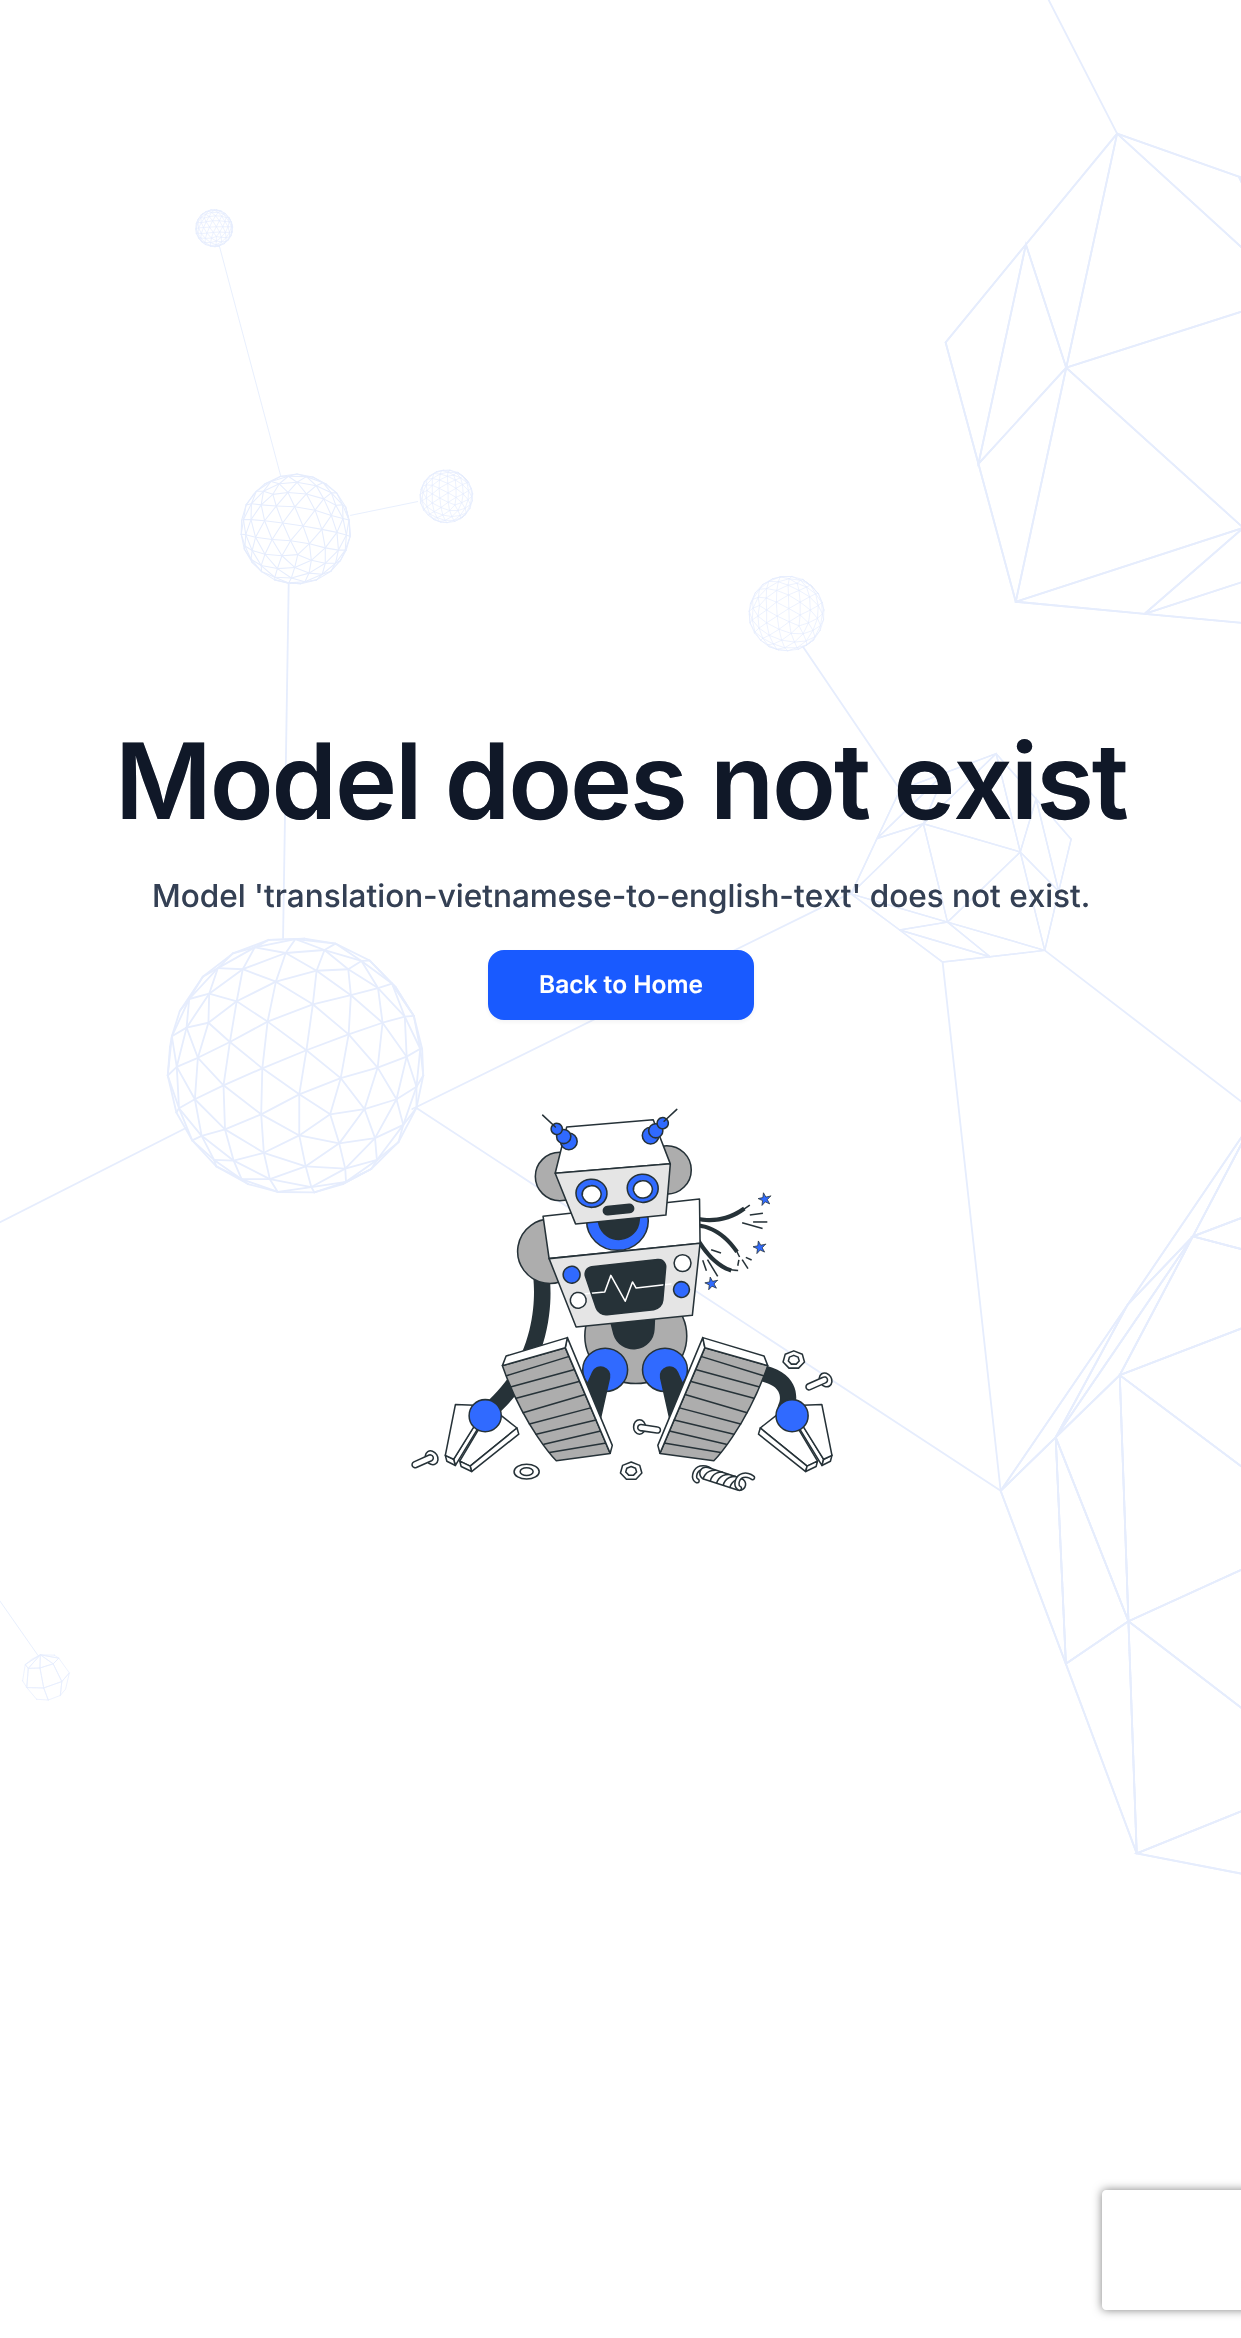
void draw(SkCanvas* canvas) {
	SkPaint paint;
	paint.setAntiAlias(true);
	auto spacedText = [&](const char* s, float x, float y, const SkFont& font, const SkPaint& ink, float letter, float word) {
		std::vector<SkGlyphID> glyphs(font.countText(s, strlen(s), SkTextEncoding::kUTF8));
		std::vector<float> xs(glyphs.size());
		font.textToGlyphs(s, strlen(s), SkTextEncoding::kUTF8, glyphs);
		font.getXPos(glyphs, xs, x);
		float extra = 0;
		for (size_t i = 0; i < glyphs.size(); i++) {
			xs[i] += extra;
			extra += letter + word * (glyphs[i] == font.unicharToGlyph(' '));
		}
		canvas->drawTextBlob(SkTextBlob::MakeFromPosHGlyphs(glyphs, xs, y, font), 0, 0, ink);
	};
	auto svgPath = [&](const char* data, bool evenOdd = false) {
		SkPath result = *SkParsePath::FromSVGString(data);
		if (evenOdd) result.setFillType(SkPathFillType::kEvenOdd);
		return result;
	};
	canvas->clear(0xffffffff);
	canvas->drawImageRect(SkImages::DeferredFromEncodedData(SkData::MakeFromFileName("img1.png")), SkRect::MakeXYWH(0, 0, 1241, 1875), SkSamplingOptions());
	SkFont f1(fontMgr->matchFamilyStyle("Inter", SkFontStyle(600, SkFontStyle::kNormal_Width, SkFontStyle::kUpright_Slant)), 105);
	f1.setSubpixel(true);
	paint.setColor(0xff101828);
	spacedText("Model does not exist", 115, 819, f1, paint, -2.1, 0);
	SkFont f2(fontMgr->matchFamilyStyle("Inter", SkFontStyle(500, SkFontStyle::kNormal_Width, SkFontStyle::kUpright_Slant)), 31.5);
	f2.setSubpixel(true);
	paint.setColor(0xff344054);
	canvas->drawString("Model 'translation-vietnamese-to-english-text' does not exist.", 152, 907, f2, paint);
	paint.setColor(0x0d101828);
	paint.setMaskFilter(SkMaskFilter::MakeBlur(kNormal_SkBlurStyle, 2));
	canvas->drawRoundRect(SkRect::MakeXYWH(488, 952, 266, 70), 16, 16, paint);
	paint.setMaskFilter(nullptr);
	paint.setColor(0xff195aff);
	canvas->drawRoundRect(SkRect::MakeXYWH(489, 951, 264, 68), 15, 15, paint);
	paint.setStroke(true);
	paint.setStrokeWidth(2);
	canvas->drawRoundRect(SkRect::MakeXYWH(489, 951, 264, 68), 15, 15, paint);
	SkFont f3(fontMgr->matchFamilyStyle("Inter", SkFontStyle(600, SkFontStyle::kNormal_Width, SkFontStyle::kUpright_Slant)), 24.5);
	f3.setSubpixel(true);
	paint.setStroke(false);
	paint.setColor(0xffffffff);
	canvas->drawString("Back to Home", 539, 993, f3, paint);
	canvas->drawImageRect(SkImages::DeferredFromEncodedData(SkData::MakeFromFileName("img2.png")), SkRect::MakeXYWH(411, 1108, 422, 384), SkSamplingOptions());
	canvas->save();
	canvas->clipPath(svgPath("M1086 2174H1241V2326H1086ZM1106 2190H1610C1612 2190 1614 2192 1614 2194V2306C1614 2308 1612 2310 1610 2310H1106C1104 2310 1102 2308 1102 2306V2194C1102 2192 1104 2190 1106 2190Z", true), true);
	paint.setColor(0xff808080);
	paint.setMaskFilter(SkMaskFilter::MakeBlur(kNormal_SkBlurStyle, 5));
	canvas->drawRoundRect(SkRect::MakeXYWH(1102, 2190, 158, 120), 4, 4, paint);
	paint.setMaskFilter(nullptr);
	canvas->restore();
}
